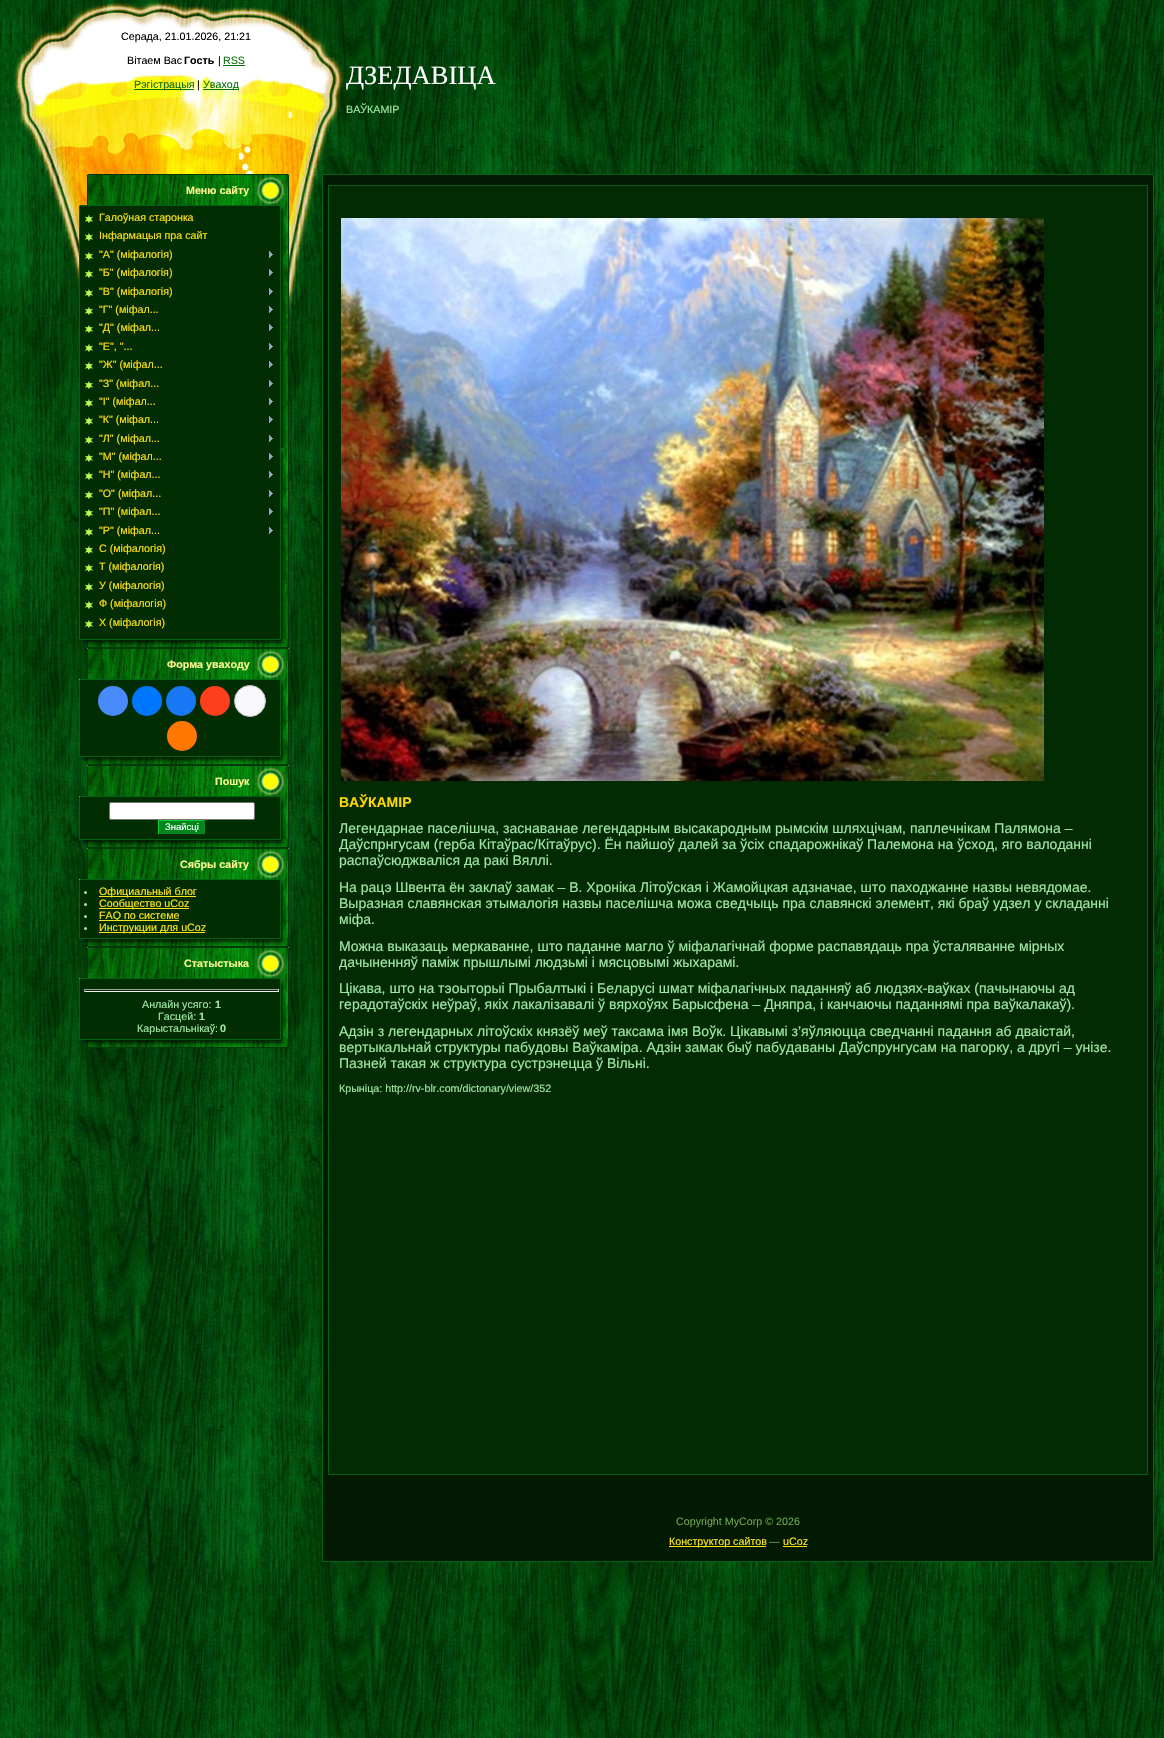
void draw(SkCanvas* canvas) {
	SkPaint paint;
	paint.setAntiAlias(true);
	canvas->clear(0xffffffff);
	canvas->drawImageRect(SkImages::DeferredFromEncodedData(SkData::MakeFromFileName("img1.png")), SkRect::MakeXYWH(0, 0, 1164, 1738), SkSamplingOptions());
	canvas->drawImageRect(SkImages::DeferredFromEncodedData(SkData::MakeFromFileName("img2.png")), SkRect::MakeXYWH(10, 0, 336, 174), SkSamplingOptions());
	SkFont f1(fontMgr->matchFamilyStyle("Liberation Sans", SkFontStyle::Normal()), 10.7);
	f1.setSubpixel(true);
	paint.setColor(0xff000000);
	canvas->drawString("Серада, 21.01.2026, 21:21", 121, 40, f1, paint);
	canvas->drawString("Вітаем Вас", 127, 64, f1, paint);
	SkFont f2(fontMgr->matchFamilyStyle("Liberation Sans", SkFontStyle::Bold()), 10.7);
	f2.setSubpixel(true);
	canvas->drawString("Гость", 184, 64, f2, paint);
	canvas->drawString("|", 218, 64, f1, paint);
	paint.setColor(0xff046f09);
	canvas->drawString("RSS", 223, 64, f1, paint);
	canvas->drawRect(SkRect::MakeXYWH(223, 65, 22, 1), paint);
	canvas->drawRect(SkRect::MakeXYWH(134, 89, 60, 1), paint);
	canvas->drawString("Рэгістрацыя", 134, 88, f1, paint);
	paint.setColor(0xff000000);
	canvas->drawString("|", 197, 88, f1, paint);
	paint.setColor(0xff046f09);
	canvas->drawRect(SkRect::MakeXYWH(203, 89, 35, 1), paint);
	canvas->drawString("Уваход", 203, 88, f1, paint);
	SkFont f3(fontMgr->matchFamilyStyle("Liberation Serif", SkFontStyle::Normal()), 26.5);
	f3.setSubpixel(true);
	paint.setColor(0xffffffff);
	canvas->drawString("ДЗЕДАВІЦА", 346, 84, f3, paint);
	paint.setColor(0xff9fe6a4);
	canvas->drawString("ВАЎКАМІР", 346, 113, f1, paint);
	canvas->drawImageRect(SkImages::DeferredFromEncodedData(SkData::MakeFromFileName("img3.png")), SkRect::MakeXYWH(10, 174, 312, 143), SkSamplingOptions());
	canvas->drawImageRect(SkImages::DeferredFromEncodedData(SkData::MakeFromFileName("img4.png")), SkRect::MakeXYWH(79, 174, 210, 32), SkSamplingOptions());
	paint.setColor(0xfffef590);
	canvas->drawString("Меню сайту", 186, 194, f2, paint);
	canvas->drawImageRect(SkImages::DeferredFromEncodedData(SkData::MakeFromFileName("img5.png")), SkRect::MakeXYWH(79, 206, 210, 433), SkSamplingOptions());
	canvas->drawImageRect(SkImages::DeferredFromEncodedData(SkData::MakeFromFileName("img6.png")), SkRect::MakeXYWH(85, 215, 8, 8), SkSamplingOptions());
	paint.setColor(0xfffce014);
	canvas->drawString("Галоўная старонка", 99, 221, f1, paint);
	canvas->drawImageRect(SkImages::DeferredFromEncodedData(SkData::MakeFromFileName("img6.png")), SkRect::MakeXYWH(85, 233, 8, 8), SkSamplingOptions());
	canvas->drawString("Інфармацыя пра сайт", 99, 239, f1, paint);
	canvas->drawImageRect(SkImages::DeferredFromEncodedData(SkData::MakeFromFileName("img6.png")), SkRect::MakeXYWH(85, 252, 8, 8), SkSamplingOptions());
	canvas->drawString("\"А\" (міфалогія)", 99, 258, f1, paint);
	canvas->drawImageRect(SkImages::DeferredFromEncodedData(SkData::MakeFromFileName("img7.png")), SkRect::MakeXYWH(269, 251, 4, 7), SkSamplingOptions());
	canvas->drawImageRect(SkImages::DeferredFromEncodedData(SkData::MakeFromFileName("img6.png")), SkRect::MakeXYWH(85, 270, 8, 8), SkSamplingOptions());
	canvas->drawString("\"Б\" (міфалогія)", 99, 276, f1, paint);
	canvas->drawImageRect(SkImages::DeferredFromEncodedData(SkData::MakeFromFileName("img7.png")), SkRect::MakeXYWH(269, 269, 4, 7), SkSamplingOptions());
	canvas->drawImageRect(SkImages::DeferredFromEncodedData(SkData::MakeFromFileName("img6.png")), SkRect::MakeXYWH(85, 289, 8, 8), SkSamplingOptions());
	canvas->drawString("\"В\" (міфалогія)", 99, 295, f1, paint);
	canvas->drawImageRect(SkImages::DeferredFromEncodedData(SkData::MakeFromFileName("img7.png")), SkRect::MakeXYWH(269, 288, 4, 7), SkSamplingOptions());
	canvas->drawImageRect(SkImages::DeferredFromEncodedData(SkData::MakeFromFileName("img6.png")), SkRect::MakeXYWH(85, 307, 8, 8), SkSamplingOptions());
	canvas->drawString("\"Г\" (міфал...", 99, 313, f1, paint);
	canvas->drawImageRect(SkImages::DeferredFromEncodedData(SkData::MakeFromFileName("img7.png")), SkRect::MakeXYWH(269, 306, 4, 7), SkSamplingOptions());
	canvas->drawImageRect(SkImages::DeferredFromEncodedData(SkData::MakeFromFileName("img6.png")), SkRect::MakeXYWH(85, 325, 8, 8), SkSamplingOptions());
	canvas->drawString("\"Д\" (міфал...", 99, 331, f1, paint);
	canvas->drawImageRect(SkImages::DeferredFromEncodedData(SkData::MakeFromFileName("img7.png")), SkRect::MakeXYWH(269, 324, 4, 7), SkSamplingOptions());
	canvas->drawImageRect(SkImages::DeferredFromEncodedData(SkData::MakeFromFileName("img6.png")), SkRect::MakeXYWH(85, 344, 8, 8), SkSamplingOptions());
	canvas->drawString("\"Е\", \"...", 99, 350, f1, paint);
	canvas->drawImageRect(SkImages::DeferredFromEncodedData(SkData::MakeFromFileName("img7.png")), SkRect::MakeXYWH(269, 343, 4, 7), SkSamplingOptions());
	canvas->drawImageRect(SkImages::DeferredFromEncodedData(SkData::MakeFromFileName("img6.png")), SkRect::MakeXYWH(85, 362, 8, 8), SkSamplingOptions());
	canvas->drawString("\"Ж\" (міфал...", 99, 368, f1, paint);
	canvas->drawImageRect(SkImages::DeferredFromEncodedData(SkData::MakeFromFileName("img7.png")), SkRect::MakeXYWH(269, 361, 4, 7), SkSamplingOptions());
	canvas->drawImageRect(SkImages::DeferredFromEncodedData(SkData::MakeFromFileName("img6.png")), SkRect::MakeXYWH(85, 381, 8, 8), SkSamplingOptions());
	canvas->drawString("\"З\" (міфал...", 99, 387, f1, paint);
	canvas->drawImageRect(SkImages::DeferredFromEncodedData(SkData::MakeFromFileName("img7.png")), SkRect::MakeXYWH(269, 380, 4, 7), SkSamplingOptions());
	canvas->drawImageRect(SkImages::DeferredFromEncodedData(SkData::MakeFromFileName("img6.png")), SkRect::MakeXYWH(85, 399, 8, 8), SkSamplingOptions());
	canvas->drawString("\"І\" (міфал...", 99, 405, f1, paint);
	canvas->drawImageRect(SkImages::DeferredFromEncodedData(SkData::MakeFromFileName("img7.png")), SkRect::MakeXYWH(269, 398, 4, 7), SkSamplingOptions());
	canvas->drawImageRect(SkImages::DeferredFromEncodedData(SkData::MakeFromFileName("img6.png")), SkRect::MakeXYWH(85, 417, 8, 8), SkSamplingOptions());
	canvas->drawString("\"К\" (міфал...", 99, 423, f1, paint);
	canvas->drawImageRect(SkImages::DeferredFromEncodedData(SkData::MakeFromFileName("img7.png")), SkRect::MakeXYWH(269, 416, 4, 7), SkSamplingOptions());
	canvas->drawImageRect(SkImages::DeferredFromEncodedData(SkData::MakeFromFileName("img6.png")), SkRect::MakeXYWH(85, 436, 8, 8), SkSamplingOptions());
	canvas->drawString("\"Л\" (міфал...", 99, 442, f1, paint);
	canvas->drawImageRect(SkImages::DeferredFromEncodedData(SkData::MakeFromFileName("img7.png")), SkRect::MakeXYWH(269, 435, 4, 7), SkSamplingOptions());
	canvas->drawImageRect(SkImages::DeferredFromEncodedData(SkData::MakeFromFileName("img6.png")), SkRect::MakeXYWH(85, 454, 8, 8), SkSamplingOptions());
	canvas->drawString("\"М\" (міфал...", 99, 460, f1, paint);
	canvas->drawImageRect(SkImages::DeferredFromEncodedData(SkData::MakeFromFileName("img7.png")), SkRect::MakeXYWH(269, 453, 4, 7), SkSamplingOptions());
	canvas->drawImageRect(SkImages::DeferredFromEncodedData(SkData::MakeFromFileName("img6.png")), SkRect::MakeXYWH(85, 472, 8, 8), SkSamplingOptions());
	canvas->drawString("\"Н\" (міфал...", 99, 478, f1, paint);
	canvas->drawImageRect(SkImages::DeferredFromEncodedData(SkData::MakeFromFileName("img7.png")), SkRect::MakeXYWH(269, 471, 4, 7), SkSamplingOptions());
	canvas->drawImageRect(SkImages::DeferredFromEncodedData(SkData::MakeFromFileName("img6.png")), SkRect::MakeXYWH(85, 491, 8, 8), SkSamplingOptions());
	canvas->drawString("\"О\" (міфал...", 99, 497, f1, paint);
	canvas->drawImageRect(SkImages::DeferredFromEncodedData(SkData::MakeFromFileName("img7.png")), SkRect::MakeXYWH(269, 490, 4, 7), SkSamplingOptions());
	canvas->drawImageRect(SkImages::DeferredFromEncodedData(SkData::MakeFromFileName("img6.png")), SkRect::MakeXYWH(85, 509, 8, 8), SkSamplingOptions());
	canvas->drawString("\"П\" (міфал...", 99, 515, f1, paint);
	canvas->drawImageRect(SkImages::DeferredFromEncodedData(SkData::MakeFromFileName("img7.png")), SkRect::MakeXYWH(269, 508, 4, 7), SkSamplingOptions());
	canvas->drawImageRect(SkImages::DeferredFromEncodedData(SkData::MakeFromFileName("img6.png")), SkRect::MakeXYWH(85, 528, 8, 8), SkSamplingOptions());
	canvas->drawString("\"Р\" (міфал...", 99, 534, f1, paint);
	canvas->drawImageRect(SkImages::DeferredFromEncodedData(SkData::MakeFromFileName("img7.png")), SkRect::MakeXYWH(269, 527, 4, 7), SkSamplingOptions());
	canvas->drawImageRect(SkImages::DeferredFromEncodedData(SkData::MakeFromFileName("img6.png")), SkRect::MakeXYWH(85, 546, 8, 8), SkSamplingOptions());
	canvas->drawString("С (міфалогія)", 99, 552, f1, paint);
	canvas->drawImageRect(SkImages::DeferredFromEncodedData(SkData::MakeFromFileName("img6.png")), SkRect::MakeXYWH(85, 564, 8, 8), SkSamplingOptions());
	canvas->drawString("Т (міфалогія)", 99, 570, f1, paint);
	canvas->drawImageRect(SkImages::DeferredFromEncodedData(SkData::MakeFromFileName("img6.png")), SkRect::MakeXYWH(85, 583, 8, 8), SkSamplingOptions());
	canvas->drawString("У (міфалогія)", 99, 589, f1, paint);
	canvas->drawImageRect(SkImages::DeferredFromEncodedData(SkData::MakeFromFileName("img6.png")), SkRect::MakeXYWH(85, 601, 8, 8), SkSamplingOptions());
	canvas->drawString("Ф (міфалогія)", 99, 607, f1, paint);
	canvas->drawImageRect(SkImages::DeferredFromEncodedData(SkData::MakeFromFileName("img6.png")), SkRect::MakeXYWH(85, 620, 8, 8), SkSamplingOptions());
	canvas->drawString("Х (міфалогія)", 99, 626, f1, paint);
	canvas->drawImageRect(SkImages::DeferredFromEncodedData(SkData::MakeFromFileName("img8.png")), SkRect::MakeXYWH(79, 639, 210, 9), SkSamplingOptions());
	canvas->drawImageRect(SkImages::DeferredFromEncodedData(SkData::MakeFromFileName("img9.png")), SkRect::MakeXYWH(79, 648, 210, 32), SkSamplingOptions());
	paint.setColor(0xfffef590);
	canvas->drawString("Форма уваходу", 167, 668, f2, paint);
	canvas->drawImageRect(SkImages::DeferredFromEncodedData(SkData::MakeFromFileName("img10.png")), SkRect::MakeXYWH(79, 680, 210, 76), SkSamplingOptions());
	paint.setColor(0xff498bfa);
	canvas->drawCircle(113, 701, 15, paint);
	paint.setColor(0xff0077ff);
	canvas->drawCircle(147, 701, 15, paint);
	paint.setColor(0xff1877f2);
	canvas->drawCircle(181, 701, 15, paint);
	paint.setColor(0xfffc3f1d);
	canvas->drawCircle(215, 701, 15, paint);
	paint.setColor(0xfff8f8fc);
	canvas->drawCircle(250, 701, 15.5, paint);
	paint.setStroke(true);
	paint.setStrokeWidth(1);
	paint.setColor(0xffc4c4c4);
	canvas->drawCircle(250, 701, 15.5, paint);
	paint.setStroke(false);
	paint.setColor(0xffff7700);
	canvas->drawCircle(182, 736, 15, paint);
	canvas->drawImageRect(SkImages::DeferredFromEncodedData(SkData::MakeFromFileName("img11.png")), SkRect::MakeXYWH(79, 756, 210, 9), SkSamplingOptions());
	canvas->drawImageRect(SkImages::DeferredFromEncodedData(SkData::MakeFromFileName("img12.png")), SkRect::MakeXYWH(79, 765, 210, 32), SkSamplingOptions());
	paint.setColor(0xfffef590);
	canvas->drawString("Пошук", 215, 785, f2, paint);
	canvas->drawImageRect(SkImages::DeferredFromEncodedData(SkData::MakeFromFileName("img13.png")), SkRect::MakeXYWH(79, 797, 210, 42), SkSamplingOptions());
	paint.setColor(0xffffffff);
	canvas->drawRoundRect(SkRect::MakeXYWH(109.5, 802.5, 145, 17), 1.5, 1.5, paint);
	paint.setStroke(true);
	paint.setColor(0xff767676);
	canvas->drawRoundRect(SkRect::MakeXYWH(109.5, 802.5, 145, 17), 1.5, 1.5, paint);
	paint.setStroke(false);
	paint.setColor(0xff03861d);
	canvas->drawRect(SkRect::MakeXYWH(159, 821, 45, 12), paint);
	paint.setColor(0xff04d12d);
	canvas->drawRect(SkRect::MakeXYWH(158, 820, 47, 1), paint);
	paint.setColor(0xff038b1e);
	canvas->drawRect(SkRect::MakeXYWH(204, 820, 1, 14), paint);
	canvas->drawRect(SkRect::MakeXYWH(158, 833, 47, 1), paint);
	paint.setColor(0xff04d12d);
	canvas->drawRect(SkRect::MakeXYWH(158, 820, 1, 14), paint);
	SkFont f4(fontMgr->matchFamilyStyle("Liberation Sans", SkFontStyle::Normal()), 9.5);
	f4.setSubpixel(true);
	paint.setColor(0xffffffff);
	canvas->drawString("Знайсці", 165, 830, f4, paint);
	canvas->drawImageRect(SkImages::DeferredFromEncodedData(SkData::MakeFromFileName("img14.png")), SkRect::MakeXYWH(79, 839, 210, 9), SkSamplingOptions());
	canvas->drawImageRect(SkImages::DeferredFromEncodedData(SkData::MakeFromFileName("img15.png")), SkRect::MakeXYWH(79, 848, 210, 32), SkSamplingOptions());
	paint.setColor(0xfffef590);
	canvas->drawString("Сябры сайту", 180, 868, f2, paint);
	canvas->drawImageRect(SkImages::DeferredFromEncodedData(SkData::MakeFromFileName("img16.png")), SkRect::MakeXYWH(79, 880, 210, 58), SkSamplingOptions());
	paint.setColor(0xff9fe6a4);
	canvas->drawCircle(85.5, 892.5, 1.5, paint);
	paint.setColor(0xfffde41a);
	canvas->drawRect(SkRect::MakeXYWH(99, 896, 97, 1), paint);
	canvas->drawString("Официальный блог", 99, 895, f1, paint);
	paint.setColor(0xff9fe6a4);
	canvas->drawCircle(85.5, 904.5, 1.5, paint);
	paint.setColor(0xfffde41a);
	canvas->drawRect(SkRect::MakeXYWH(99, 908, 90, 1), paint);
	canvas->drawString("Сообщество uCoz", 99, 907, f1, paint);
	paint.setColor(0xff9fe6a4);
	canvas->drawCircle(85.5, 916.5, 1.5, paint);
	paint.setColor(0xfffde41a);
	canvas->drawRect(SkRect::MakeXYWH(99, 920, 80, 1), paint);
	canvas->drawString("FAQ по системе", 99, 919, f1, paint);
	paint.setColor(0xff9fe6a4);
	canvas->drawCircle(85.5, 928.5, 1.5, paint);
	paint.setColor(0xfffde41a);
	canvas->drawRect(SkRect::MakeXYWH(99, 932, 106, 1), paint);
	canvas->drawString("Инструкции для uCoz", 99, 931, f1, paint);
	canvas->drawImageRect(SkImages::DeferredFromEncodedData(SkData::MakeFromFileName("img17.png")), SkRect::MakeXYWH(79, 938, 210, 9), SkSamplingOptions());
	canvas->drawImageRect(SkImages::DeferredFromEncodedData(SkData::MakeFromFileName("img18.png")), SkRect::MakeXYWH(79, 947, 210, 32), SkSamplingOptions());
	paint.setColor(0xfffef590);
	canvas->drawString("Статыстыка", 184, 967, f2, paint);
	canvas->drawImageRect(SkImages::DeferredFromEncodedData(SkData::MakeFromFileName("img19.png")), SkRect::MakeXYWH(79, 979, 210, 60), SkSamplingOptions());
	paint.setColor(0xff9f9f9f);
	canvas->drawRect(SkRect::MakeXYWH(84, 989, 195, 1), paint);
	paint.setColor(0xffeeeeee);
	canvas->drawRect(SkRect::MakeXYWH(278, 989, 1, 3), paint);
	canvas->drawRect(SkRect::MakeXYWH(84, 991, 195, 1), paint);
	paint.setColor(0xff9f9f9f);
	canvas->drawRect(SkRect::MakeXYWH(84, 989, 1, 3), paint);
	paint.setColor(0xff9fe6a4);
	canvas->drawString("Анлайн усяго:", 142, 1008, f1, paint);
	canvas->drawString("1", 215, 1008, f2, paint);
	canvas->drawString("Гасцей:", 158, 1020, f1, paint);
	canvas->drawString("1", 199, 1020, f2, paint);
	canvas->drawString("Карыстальнікаў:", 137, 1032, f1, paint);
	canvas->drawString("0", 220, 1032, f2, paint);
	canvas->drawImageRect(SkImages::DeferredFromEncodedData(SkData::MakeFromFileName("img20.png")), SkRect::MakeXYWH(79, 1039, 210, 9), SkSamplingOptions());
	paint.setColor(0xff021a01);
	canvas->drawRect(SkRect::MakeXYWH(322.5, 174.5, 831, 1387), paint);
	paint.setStroke(true);
	paint.setColor(0xff026115);
	canvas->drawRect(SkRect::MakeXYWH(322.5, 174.5, 831, 1387), paint);
	canvas->drawRect(SkRect::MakeXYWH(328.5, 185.5, 819, 1289), paint);
	paint.setStroke(false);
	paint.setColor(0xff022a03);
	canvas->drawRect(SkRect::MakeXYWH(329, 186, 818, 1288), paint);
	canvas->drawImageRect(SkImages::DeferredFromEncodedData(SkData::MakeFromFileName("img21.png")), SkRect::MakeXYWH(341, 218, 703, 563), SkSamplingOptions());
	SkFont f5(fontMgr->matchFamilyStyle("Liberation Sans", SkFontStyle::Bold()), 14);
	f5.setSubpixel(true);
	paint.setColor(0xffffd700);
	canvas->drawString("ВАЎКАМІР", 339, 807, f5, paint);
	SkFont f6(fontMgr->matchFamilyStyle("Liberation Sans", SkFontStyle::Normal()), 14);
	f6.setSubpixel(true);
	paint.setColor(0xff9fe6a4);
	canvas->drawString("Легендарнае паселішча, заснаванае легендарным высакародным рымскім шляхцічам, паплечнікам Палямона –", 339, 833, f6, paint);
	canvas->drawString("Даўспрнгусам (герба Кітаўрас/Кітаўрус). Ён пайшоў далей за ўсіх спадарожнікаў Палемона на ўсход, яго валоданні", 339, 849, f6, paint);
	canvas->drawString("распаўсюджваліся да ракі Вяллі.", 339, 865, f6, paint);
	canvas->drawString("На рацэ Швента ён заклаў замак – В. Хроніка Літоўская і Жамойцкая адзначае, што паходжанне назвы невядомае.", 339, 892, f6, paint);
	canvas->drawString("Выразная славянская этымалогія назвы паселішча можа сведчыць пра славянскі элемент, які браў удзел у складанні", 339, 908, f6, paint);
	canvas->drawString("міфа.", 339, 924, f6, paint);
	canvas->drawString("Можна выказаць меркаванне, што паданне магло ў міфалагічнай форме распавядаць пра ўсталяванне мірных", 339, 951, f6, paint);
	canvas->drawString("дачыненняў паміж прышлымі людзьмі і мясцовымі жыхарамі.", 339, 967, f6, paint);
	canvas->drawString("Цікава, што на тэоыторыі Прыбалтыкі і Беларусі шмат міфалагічных паданняў аб людзях-ваўках (пачынаючы ад", 339, 993, f6, paint);
	canvas->drawString("герадотаўскіх неўраў, якіх лакалізавалі ў вярхоўях Барысфена – Дняпра, і канчаючы паданнямі пра ваўкалакаў).", 339, 1009, f6, paint);
	canvas->drawString("Адзін з легендарных літоўскіх князёў меў таксама імя Воўк. Цікавымі з’яўляюцца сведчанні падання аб дваістай,", 339, 1036, f6, paint);
	canvas->drawString("вертыкальнай структуры пабудовы Ваўкаміра. Адзін замак быў пабудаваны Даўспрунгусам на пагорку, а другі – унізе.", 339, 1052, f6, paint);
	canvas->drawString("Пазней такая ж структура сустрэнецца ў Вільні.", 339, 1068, f6, paint);
	canvas->drawString("Крыніца: http://rv-blr.com/dictonary/view/352", 339, 1092, f1, paint);
	paint.setColor(0xff71a556);
	canvas->drawString("Copyright MyCorp © 2026", 676, 1525, f1, paint);
	paint.setColor(0xfffde41a);
	canvas->drawRect(SkRect::MakeXYWH(669, 1546, 97, 1), paint);
	canvas->drawString("Конструктор сайтов", 669, 1545, f1, paint);
	paint.setColor(0xff71a556);
	canvas->drawString("—", 769, 1545, f1, paint);
	paint.setColor(0xfffde41a);
	canvas->drawString("uCoz", 783, 1545, f1, paint);
	canvas->drawRect(SkRect::MakeXYWH(783, 1546, 24, 1), paint);
}
